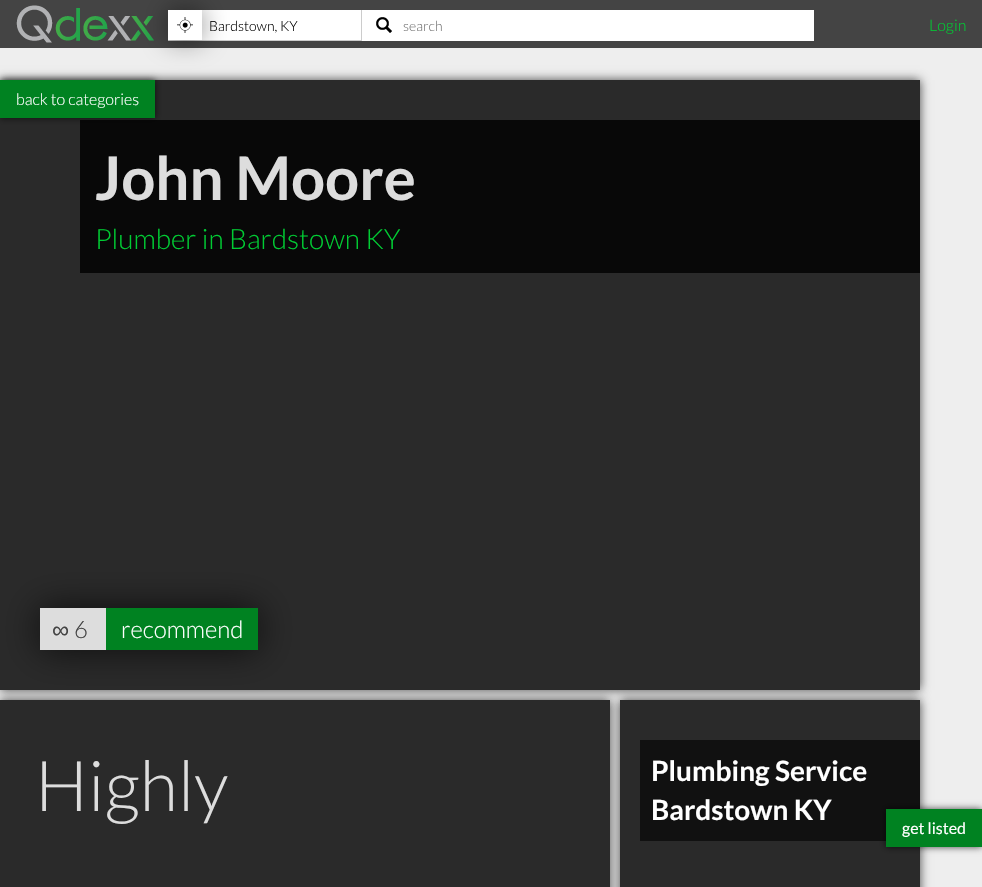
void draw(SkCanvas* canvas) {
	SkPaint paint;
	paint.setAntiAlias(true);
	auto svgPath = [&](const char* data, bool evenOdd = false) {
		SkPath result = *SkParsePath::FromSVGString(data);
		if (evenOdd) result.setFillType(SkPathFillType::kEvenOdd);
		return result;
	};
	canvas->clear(0xffeeeeee);
	paint.setColor(0xff444444);
	canvas->drawRect(SkRect::MakeXYWH(0, 0, 982, 48), paint);
	canvas->drawImageRect(SkImages::DeferredFromEncodedData(SkData::MakeFromFileName("img1.png")), SkRect::MakeXYWH(16, 5, 138, 38), SkSamplingOptions());
	paint.setColor(0xffffffff);
	canvas->drawRect(SkRect::MakeXYWH(362, 10, 452, 31), paint);
	paint.setColor(0xffcccccc);
	canvas->drawRect(SkRect::MakeXYWH(361, 10, 1, 31), paint);
	canvas->drawRect(SkRect::MakeXYWH(168, 40, 194, 1), paint);
	paint.setColor(0xffffffff);
	canvas->drawRect(SkRect::MakeXYWH(168, 10, 193, 30), paint);
	paint.setColor(0xb3000000);
	paint.setMaskFilter(SkMaskFilter::MakeBlur(kNormal_SkBlurStyle, 5));
	canvas->drawRect(SkRect::MakeXYWH(0, 80, 920, 610), paint);
	paint.setMaskFilter(nullptr);
	paint.setColor(0xff2a2a2a);
	canvas->drawRect(SkRect::MakeXYWH(0, 80, 920, 610), paint);
	paint.setColor(0xff080808);
	canvas->drawRect(SkRect::MakeXYWH(80, 120, 840, 153), paint);
	paint.setColor(0xb3000000);
	paint.setMaskFilter(SkMaskFilter::MakeBlur(kNormal_SkBlurStyle, 3.5));
	canvas->drawRect(SkRect::MakeXYWH(0, 80, 155, 38), paint);
	paint.setMaskFilter(nullptr);
	paint.setColor(0xff008221);
	canvas->drawRect(SkRect::MakeXYWH(0, 80, 155, 38), paint);
	canvas->save();
	canvas->clipPath(svgPath("M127 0H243V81H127ZM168 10H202V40H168Z", true), true);
	paint.setColor(0xff000000);
	paint.setMaskFilter(SkMaskFilter::MakeBlur(kNormal_SkBlurStyle, 15));
	canvas->drawRect(SkRect::MakeXYWH(173, 15, 24, 20), paint);
	paint.setMaskFilter(nullptr);
	canvas->restore();
	canvas->drawImageRect(SkImages::DeferredFromEncodedData(SkData::MakeFromFileName("img2.png")), SkRect::MakeXYWH(177, 17, 16, 16), SkSamplingOptions());
	SkFont f1(fontMgr->matchFamilyStyle("Lato", SkFontStyle(300, SkFontStyle::kNormal_Width, SkFontStyle::kUpright_Slant)), 14);
	f1.setSubpixel(true);
	canvas->drawString("Bardstown, KY", 209, 31, f1, paint);
	canvas->drawImageRect(SkImages::DeferredFromEncodedData(SkData::MakeFromFileName("img3.png")), SkRect::MakeXYWH(376, 17, 16, 16), SkSamplingOptions());
	paint.setColor(0xff757575);
	canvas->drawString("search", 403, 31, f1, paint);
	SkFont f2(fontMgr->matchFamilyStyle("Lato", SkFontStyle(300, SkFontStyle::kNormal_Width, SkFontStyle::kUpright_Slant)), 16);
	f2.setSubpixel(true);
	paint.setColor(0xff00cc33);
	canvas->drawString("Login", 929, 31, f2, paint);
	paint.setColor(0xffffffff);
	canvas->drawString("back to categories", 16, 105, f2, paint);
	SkFont f3(fontMgr->matchFamilyStyle("Lato", SkFontStyle::Bold()), 60);
	f3.setSubpixel(true);
	paint.setColor(0xffdddddd);
	canvas->drawString("John Moore", 95, 200, f3, paint);
	SkFont f4(fontMgr->matchFamilyStyle("Lato", SkFontStyle(300, SkFontStyle::kNormal_Width, SkFontStyle::kUpright_Slant)), 28);
	f4.setSubpixel(true);
	paint.setColor(0xff00cc33);
	canvas->drawString("Plumber in Bardstown KY", 95, 249, f4, paint);
	paint.setColor(0xb3000000);
	paint.setMaskFilter(SkMaskFilter::MakeBlur(kNormal_SkBlurStyle, 5));
	canvas->drawRect(SkRect::MakeXYWH(0, 700, 610, 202), paint);
	paint.setMaskFilter(nullptr);
	paint.setColor(0xff2a2a2a);
	canvas->drawRect(SkRect::MakeXYWH(0, 700, 610, 187), paint);
	paint.setColor(0xb3000000);
	paint.setMaskFilter(SkMaskFilter::MakeBlur(kNormal_SkBlurStyle, 18.5));
	canvas->drawRect(SkRect::MakeXYWH(40, 608, 218, 42), paint);
	paint.setMaskFilter(nullptr);
	paint.setColor(0xffdddddd);
	canvas->drawRect(SkRect::MakeXYWH(40, 608, 66, 42), paint);
	SkFont f5(fontMgr->matchFamilyStyle("Liberation Sans", SkFontStyle::Normal()), 24);
	f5.setSubpixel(true);
	paint.setColor(0xff444444);
	canvas->drawString("∞", 52, 638, f5, paint);
	SkFont f6(fontMgr->matchFamilyStyle("Lato", SkFontStyle(300, SkFontStyle::kNormal_Width, SkFontStyle::kUpright_Slant)), 24);
	f6.setSubpixel(true);
	canvas->drawString("6", 74, 638, f6, paint);
	paint.setColor(0xff008221);
	canvas->drawRect(SkRect::MakeXYWH(106, 608, 152, 42), paint);
	paint.setColor(0xffffffff);
	canvas->drawString("recommend", 121, 638, f6, paint);
	SkFont f7(fontMgr->matchFamilyStyle("Lato", SkFontStyle(300, SkFontStyle::kNormal_Width, SkFontStyle::kUpright_Slant)), 70);
	f7.setSubpixel(true);
	paint.setColor(0xffdddddd);
	canvas->drawString("Highly", 35, 811, f7, paint);
	paint.setColor(0xb3000000);
	paint.setMaskFilter(SkMaskFilter::MakeBlur(kNormal_SkBlurStyle, 5));
	canvas->drawRect(SkRect::MakeXYWH(620, 700, 300, 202), paint);
	paint.setMaskFilter(nullptr);
	paint.setColor(0xff2a2a2a);
	canvas->drawRect(SkRect::MakeXYWH(620, 700, 300, 187), paint);
	paint.setColor(0xff111111);
	canvas->drawRect(SkRect::MakeXYWH(640, 740, 280, 101), paint);
	SkFont f8(fontMgr->matchFamilyStyle("Lato", SkFontStyle::Bold()), 28);
	f8.setSubpixel(true);
	paint.setColor(0xffffffff);
	canvas->drawString("Plumbing Service", 651, 781, f8, paint);
	canvas->drawString("Bardstown KY", 651, 820, f8, paint);
	paint.setColor(0xb3000000);
	paint.setMaskFilter(SkMaskFilter::MakeBlur(kNormal_SkBlurStyle, 3.5));
	canvas->drawRect(SkRect::MakeXYWH(886, 809, 96, 38), paint);
	paint.setMaskFilter(nullptr);
	paint.setColor(0xff008221);
	canvas->drawRect(SkRect::MakeXYWH(886, 809, 96, 38), paint);
	SkFont f9(fontMgr->matchFamilyStyle("Lato", SkFontStyle::Normal()), 16);
	f9.setSubpixel(true);
	paint.setColor(0xffffffff);
	canvas->drawString("get listed", 902, 834, f9, paint);
}
